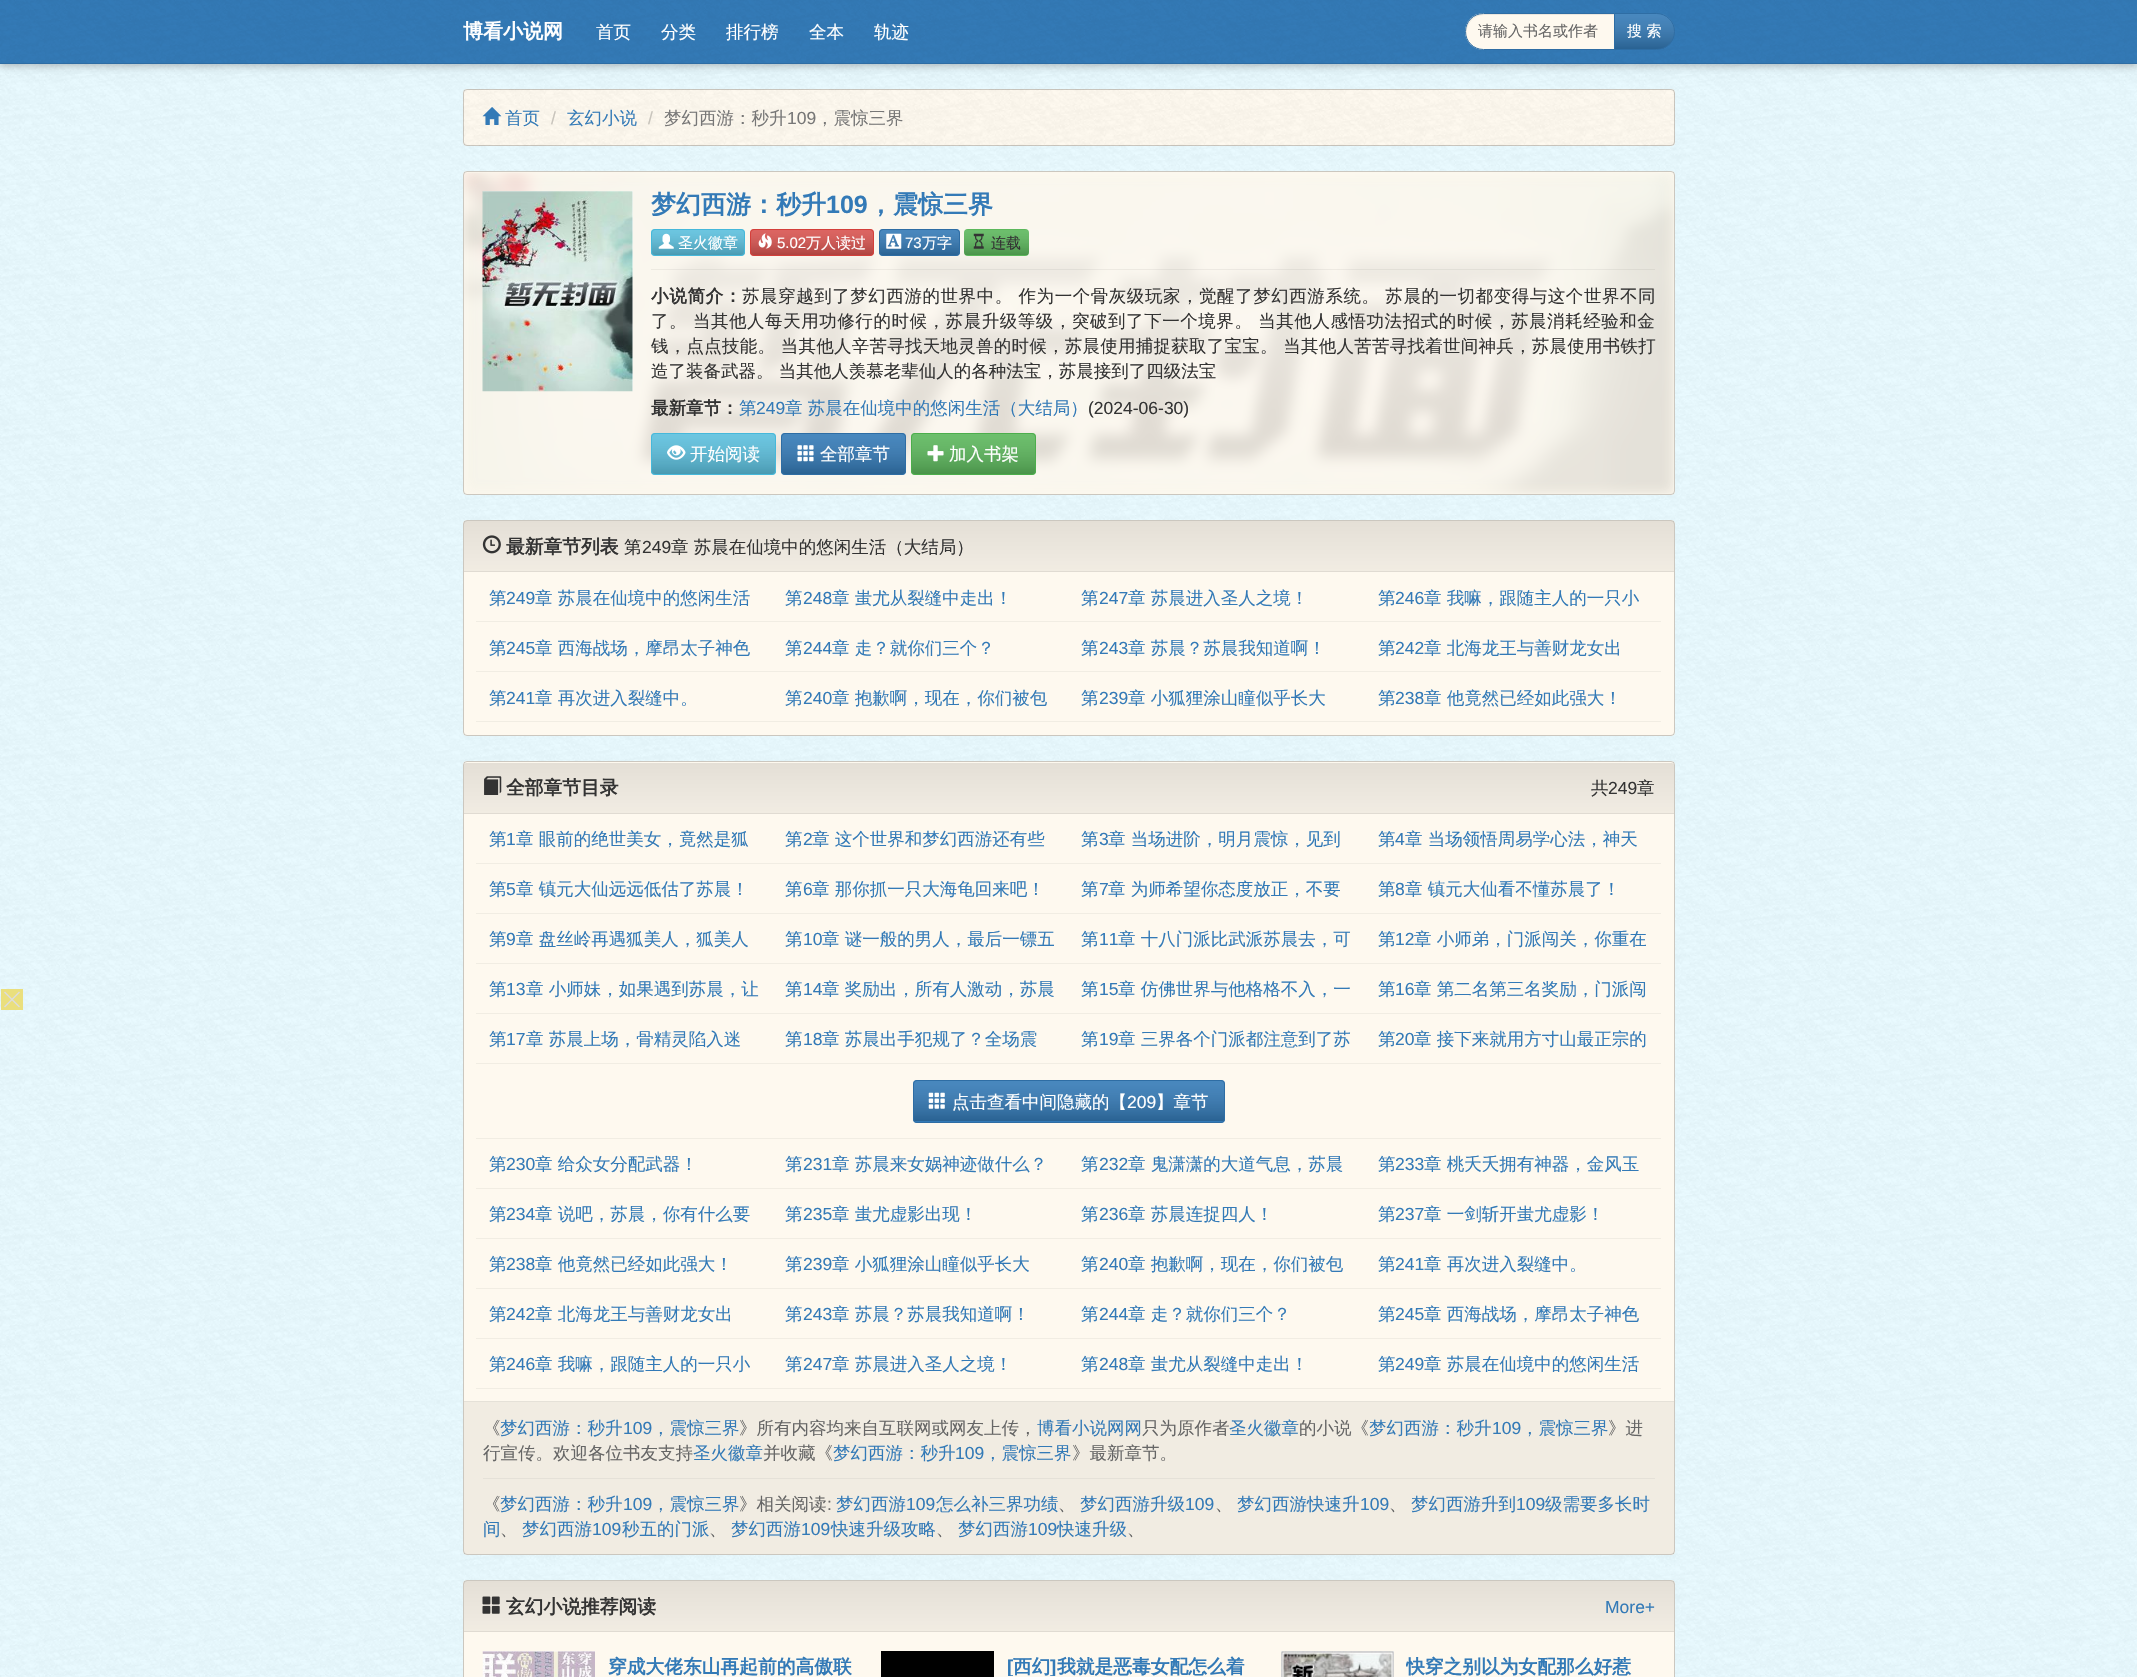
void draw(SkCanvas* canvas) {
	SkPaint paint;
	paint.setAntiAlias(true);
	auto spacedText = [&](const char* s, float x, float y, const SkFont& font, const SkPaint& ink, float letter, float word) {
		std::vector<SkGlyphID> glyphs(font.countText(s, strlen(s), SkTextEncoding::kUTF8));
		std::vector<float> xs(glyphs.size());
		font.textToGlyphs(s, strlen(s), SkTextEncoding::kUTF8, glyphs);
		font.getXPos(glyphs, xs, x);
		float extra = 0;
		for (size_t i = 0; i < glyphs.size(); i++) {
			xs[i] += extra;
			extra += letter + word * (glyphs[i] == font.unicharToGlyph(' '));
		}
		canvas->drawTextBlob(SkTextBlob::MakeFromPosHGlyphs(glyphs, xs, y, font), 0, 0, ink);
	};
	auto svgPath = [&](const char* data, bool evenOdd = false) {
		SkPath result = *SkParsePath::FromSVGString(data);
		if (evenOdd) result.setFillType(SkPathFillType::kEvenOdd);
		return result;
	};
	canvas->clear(0xffe9faff);
	canvas->drawImageRect(SkImages::DeferredFromEncodedData(SkData::MakeFromFileName("img1.png")), SkRect::MakeXYWH(0, 64, 2137, 1613), SkSamplingOptions());
	paint.setColor(0x0f000000);
	paint.setMaskFilter(SkMaskFilter::MakeBlur(kNormal_SkBlurStyle, 6));
	canvas->drawRect(SkRect::MakeXYWH(0, 1, 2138, 64), paint);
	paint.setMaskFilter(nullptr);
	paint.setColor(0x12000000);
	paint.setMaskFilter(SkMaskFilter::MakeBlur(kNormal_SkBlurStyle, 3));
	canvas->drawRect(SkRect::MakeXYWH(0, 5, 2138, 64), paint);
	paint.setMaskFilter(nullptr);
	paint.setColor(0x1f000000);
	paint.setMaskFilter(SkMaskFilter::MakeBlur(kNormal_SkBlurStyle, 2.5));
	canvas->drawRect(SkRect::MakeXYWH(1, 4, 2135, 61), paint);
	paint.setMaskFilter(nullptr);
	paint.setColor(0xff337ab7);
	canvas->drawRect(SkRect::MakeXYWH(0, 0, 2137, 63), paint);
	canvas->drawImageRect(SkImages::DeferredFromEncodedData(SkData::MakeFromFileName("img2.png")), SkRect::MakeXYWH(0, 0, 2137, 63), SkSamplingOptions());
	paint.setColor(0xff2e6da4);
	canvas->drawRect(SkRect::MakeXYWH(0, 63, 2137, 1), paint);
	SkFont f1(fontMgr->matchFamilyStyle("WenQuanYi Zen Hei", SkFontStyle::Bold()), 20);
	f1.setSubpixel(true);
	paint.setColor(0xffffffff);
	canvas->drawString("博看小说网", 463, 38, f1, paint);
	SkFont f2(fontMgr->matchFamilyStyle("WenQuanYi Zen Hei", SkFontStyle(500, SkFontStyle::kNormal_Width, SkFontStyle::kUpright_Slant)), 17.5);
	f2.setSubpixel(true);
	canvas->drawString("首页", 596, 38, f2, paint);
	canvas->drawString("分类", 661, 38, f2, paint);
	canvas->drawString("排行榜", 726, 38, f2, paint);
	canvas->drawString("全本", 809, 38, f2, paint);
	canvas->drawString("轨迹", 874, 38, f2, paint);
	paint.setColor(0xfffef9ef);
	canvas->drawPath(svgPath("M1483.5 13H1615V50H1483.5C1473.5 50 1465 41.5 1465 31.5C1465 21.5 1473.5 13 1483.5 13Z"), paint);
	paint.setColor(0xffebe6dd);
	canvas->drawPath(svgPath("M1484 15H1614V14H1484C1474 14 1466 22 1466 32L1467 37C1465 27 1471 15 1484 15Z"), paint);
	paint.setStroke(true);
	paint.setStrokeWidth(1);
	paint.setColor(0xff2e6da4);
	canvas->drawPath(svgPath("M1483.5 13.5H1614.5V49.5H1483.5C1473.5 49.5 1465.5 41.5 1465.5 31.5C1465.5 21.5 1473.5 13.5 1483.5 13.5Z"), paint);
	SkFont f3(fontMgr->matchFamilyStyle("WenQuanYi Zen Hei", SkFontStyle(500, SkFontStyle::kNormal_Width, SkFontStyle::kUpright_Slant)), 15);
	f3.setSubpixel(true);
	paint.setStroke(false);
	paint.setColor(0xff666666);
	canvas->drawString("请输入书名或作者", 1478, 36, f3, paint);
	paint.setColor(0xff337ab7);
	canvas->drawPath(svgPath("M1614 13H1656.5C1666.5 13 1675 21.5 1675 31.5C1675 41.5 1666.5 50 1656.5 50H1614Z"), paint);
	canvas->save();
	canvas->clipPath(svgPath("M1614 13H1656.5C1666.5 13 1675 21.5 1675 31.5C1675 41.5 1666.5 50 1656.5 50H1614Z"), true);
	{
		const SkColor colors[] = {0x1affffff, 0x33000000};
		const float stops[] = {0, 1};
		const SkPoint ends[] = {{1644, 14}, {1644, 49}};
		paint.setShader(SkGradientShader::MakeLinear(ends, colors, stops, 2, SkTileMode::kClamp));
		paint.setAlpha(255);
	}
	canvas->drawRect(SkRect::MakeXYWH(1615, 14, 60, 35), paint);
	canvas->restore();
	paint.setStroke(true);
	paint.setShader(nullptr);
	paint.setColor(0xff2e6da4);
	canvas->drawPath(svgPath("M1614.5 13.5H1656.5C1666.5 13.5 1674.5 21.5 1674.5 31.5C1674.5 41.5 1666.5 49.5 1656.5 49.5H1614.5Z"), paint);
	paint.setStroke(false);
	paint.setColor(0xffffffff);
	canvas->drawString("搜 索", 1627, 36, f3, paint);
	paint.setColor(0xffeadf7d);
	canvas->drawRect(SkRect::MakeXYWH(1, 989, 22, 21), paint);
	paint.setColor(0xffdddddd);
	canvas->drawPath(svgPath("M5 991.5L20 1006.5L19 1007.5L4 992.5Z"), paint);
	canvas->drawPath(svgPath("M4 1006.5L19 991.5L20 992.5L5 1007.5Z"), paint);
	paint.setColor(0xfffef9ef);
	canvas->drawRoundRect(SkRect::MakeXYWH(463, 89, 1212, 57), 4, 4, paint);
	canvas->drawImageRect(SkImages::DeferredFromEncodedData(SkData::MakeFromFileName("img3.png")), SkRect::MakeXYWH(463, 89, 1212, 57), SkSamplingOptions());
	paint.setStroke(true);
	paint.setColor(0x33000000);
	canvas->drawRoundRect(SkRect::MakeXYWH(463.5, 89.5, 1211, 56), 3.5, 3.5, paint);
	canvas->drawImageRect(SkImages::DeferredFromEncodedData(SkData::MakeFromFileName("img4.png")), SkRect::MakeXYWH(482, 107, 20, 18), SkSamplingOptions());
	paint.setStroke(false);
	paint.setColor(0xff337ab7);
	canvas->drawString("首页", 505, 124, f2, paint);
	SkFont f4(fontMgr->matchFamilyStyle("Liberation Sans", SkFontStyle::Normal()), 17.5);
	f4.setSubpixel(true);
	paint.setColor(0xffc8c4bc);
	canvas->drawString("/", 551, 124, f4, paint);
	paint.setColor(0xff337ab7);
	canvas->drawString("玄幻小说", 567, 124, f2, paint);
	paint.setColor(0xffc8c4bc);
	canvas->drawString("/", 648, 124, f4, paint);
	paint.setColor(0xff777777);
	canvas->drawString("梦幻西游：秒升", 664, 124, f2, paint);
	canvas->drawString("109", 787, 124, f4, paint);
	canvas->drawString("，震惊三界", 816, 124, f2, paint);
	paint.setColor(0xfffef9ef);
	canvas->drawRoundRect(SkRect::MakeXYWH(463, 171, 1212, 324), 4, 4, paint);
	paint.setStroke(true);
	paint.setColor(0x33000000);
	canvas->drawRoundRect(SkRect::MakeXYWH(463.5, 171.5, 1211, 323), 3.5, 3.5, paint);
	canvas->drawImageRect(SkImages::DeferredFromEncodedData(SkData::MakeFromFileName("img5.png")), SkRect::MakeXYWH(464, 172, 1210, 322), SkSamplingOptions());
	paint.setStroke(false);
	paint.setColor(0xffffffff);
	canvas->drawRect(SkRect::MakeXYWH(483, 191, 150, 200), paint);
	canvas->drawImageRect(SkImages::DeferredFromEncodedData(SkData::MakeFromFileName("img6.png")), SkRect::MakeXYWH(482, 191, 151, 201), SkSamplingOptions());
	SkFont f5(fontMgr->matchFamilyStyle("WenQuanYi Zen Hei", SkFontStyle::Bold()), 25);
	f5.setSubpixel(true);
	paint.setColor(0xff337ab7);
	canvas->drawString("梦幻西游：秒升", 651, 213, f5, paint);
	SkFont f6(fontMgr->matchFamilyStyle("Liberation Sans", SkFontStyle::Bold()), 25);
	f6.setSubpixel(true);
	canvas->drawString("109", 826, 213, f6, paint);
	canvas->drawString("，震惊三界", 868, 213, f5, paint);
	paint.setColor(0xff5bc0de);
	canvas->drawRoundRect(SkRect::MakeXYWH(651, 229, 94, 27), 4, 4, paint);
	canvas->save();
	canvas->clipPath(svgPath("M655 229H741C743 229 745 231 745 233V252C745 254 743 256 741 256H655C653 256 651 254 651 252V233C651 231 653 229 655 229Z"), true);
	{
		const SkColor colors[] = {0x1affffff, 0x33000000};
		const float stops[] = {0, 1};
		const SkPoint ends[] = {{698, 230}, {698, 255}};
		paint.setShader(SkGradientShader::MakeLinear(ends, colors, stops, 2, SkTileMode::kClamp));
		paint.setAlpha(255);
	}
	canvas->drawRect(SkRect::MakeXYWH(651, 230, 94, 25), paint);
	canvas->restore();
	paint.setStroke(true);
	paint.setShader(nullptr);
	paint.setColor(0xff46b8da);
	canvas->drawRoundRect(SkRect::MakeXYWH(651.5, 229.5, 93, 26), 3.5, 3.5, paint);
	canvas->drawImageRect(SkImages::DeferredFromEncodedData(SkData::MakeFromFileName("img7.png")), SkRect::MakeXYWH(658, 233, 16, 16), SkSamplingOptions());
	paint.setStroke(false);
	paint.setColor(0xffffffff);
	canvas->drawString("圣火徽章", 678, 248, f3, paint);
	paint.setColor(0xffd9534f);
	canvas->drawRoundRect(SkRect::MakeXYWH(750, 229, 124, 27), 4, 4, paint);
	canvas->save();
	canvas->clipPath(svgPath("M754 229H870C872 229 874 231 874 233V252C874 254 872 256 870 256H754C752 256 750 254 750 252V233C750 231 752 229 754 229Z"), true);
	{
		const SkColor colors[] = {0x1affffff, 0x33000000};
		const float stops[] = {0, 1};
		const SkPoint ends[] = {{812, 230}, {812, 255}};
		paint.setShader(SkGradientShader::MakeLinear(ends, colors, stops, 2, SkTileMode::kClamp));
		paint.setAlpha(255);
	}
	canvas->drawRect(SkRect::MakeXYWH(750, 230, 124, 25), paint);
	canvas->restore();
	paint.setStroke(true);
	paint.setShader(nullptr);
	paint.setColor(0xffd43f3a);
	canvas->drawRoundRect(SkRect::MakeXYWH(750.5, 229.5, 123, 26), 3.5, 3.5, paint);
	canvas->drawImageRect(SkImages::DeferredFromEncodedData(SkData::MakeFromFileName("img8.png")), SkRect::MakeXYWH(758, 233, 14, 16), SkSamplingOptions());
	SkFont f7(fontMgr->matchFamilyStyle("Liberation Sans", SkFontStyle::Normal()), 15);
	f7.setSubpixel(true);
	paint.setStroke(false);
	paint.setColor(0xffffffff);
	canvas->drawString("5.02", 777, 248, f7, paint);
	canvas->drawString("万人读过", 806, 248, f3, paint);
	paint.setColor(0xff337ab7);
	canvas->drawRoundRect(SkRect::MakeXYWH(879, 229, 81, 27), 4, 4, paint);
	canvas->save();
	canvas->clipPath(svgPath("M883 229H956C958 229 960 231 960 233V252C960 254 958 256 956 256H883C881 256 879 254 879 252V233C879 231 881 229 883 229Z"), true);
	{
		const SkColor colors[] = {0x1affffff, 0x33000000};
		const float stops[] = {0, 1};
		const SkPoint ends[] = {{919, 230}, {919, 255}};
		paint.setShader(SkGradientShader::MakeLinear(ends, colors, stops, 2, SkTileMode::kClamp));
		paint.setAlpha(255);
	}
	canvas->drawRect(SkRect::MakeXYWH(879, 230, 81, 25), paint);
	canvas->restore();
	paint.setStroke(true);
	paint.setShader(nullptr);
	paint.setColor(0xff2e6da4);
	canvas->drawRoundRect(SkRect::MakeXYWH(879.5, 229.5, 80, 26), 3.5, 3.5, paint);
	canvas->drawImageRect(SkImages::DeferredFromEncodedData(SkData::MakeFromFileName("img9.png")), SkRect::MakeXYWH(886, 233, 16, 16), SkSamplingOptions());
	paint.setStroke(false);
	paint.setColor(0xffffffff);
	canvas->drawString("73", 905, 248, f7, paint);
	canvas->drawString("万字", 922, 248, f3, paint);
	paint.setColor(0xff5cb85c);
	canvas->drawRoundRect(SkRect::MakeXYWH(964, 229, 65, 27), 4, 4, paint);
	canvas->save();
	canvas->clipPath(svgPath("M968 229H1025C1027 229 1029 231 1029 233V252C1029 254 1027 256 1025 256H968C966 256 964 254 964 252V233C964 231 966 229 968 229Z"), true);
	{
		const SkColor colors[] = {0x1affffff, 0x33000000};
		const float stops[] = {0, 1};
		const SkPoint ends[] = {{996, 230}, {996, 255}};
		paint.setShader(SkGradientShader::MakeLinear(ends, colors, stops, 2, SkTileMode::kClamp));
		paint.setAlpha(255);
	}
	canvas->drawRect(SkRect::MakeXYWH(964, 230, 65, 25), paint);
	canvas->restore();
	canvas->drawImageRect(SkImages::DeferredFromEncodedData(SkData::MakeFromFileName("img10.png")), SkRect::MakeXYWH(973, 233, 11, 16), SkSamplingOptions());
	paint.setShader(nullptr);
	paint.setColor(0xff333333);
	canvas->drawString("连载", 991, 248, f3, paint);
	paint.setColor(0x0d000000);
	canvas->drawRect(SkRect::MakeXYWH(651, 269, 1004, 1), paint);
	SkFont f8(fontMgr->matchFamilyStyle("WenQuanYi Zen Hei", SkFontStyle::Bold()), 17.5);
	f8.setSubpixel(true);
	paint.setColor(0xff333333);
	spacedText("小说简介：", 651, 302, f8, paint, 0.75, 0);
	spacedText("苏晨穿越到了梦幻西游的世界中。 作为一个骨灰级玩家，觉醒了梦幻西游系统。 苏晨的一切都变得与这个世界不同", 742, 302, f2, paint, 0.55, 0);
	spacedText("了。 当其他人每天用功修行的时候，苏晨升级等级，突破到了下一个境界。 当其他人感悟功法招式的时候，苏晨消耗经验和金", 651, 327, f2, paint, 0.55, 0);
	spacedText("钱，点点技能。 当其他人辛苦寻找天地灵兽的时候，苏晨使用捕捉获取了宝宝。 当其他人苦苦寻找着世间神兵，苏晨使用书铁打", 651, 352, f2, paint, 0.25, 0);
	canvas->drawString("造了装备武器。 当其他人羡慕老辈仙人的各种法宝，苏晨接到了四级法宝", 651, 377, f2, paint);
	canvas->drawString("最新章节：", 651, 414, f8, paint);
	paint.setColor(0xff337ab7);
	canvas->drawString("第", 739, 414, f2, paint);
	canvas->drawString("249", 756, 414, f4, paint);
	canvas->drawString("章 苏晨在仙境中的悠闲生活（大结局）", 785, 414, f2, paint);
	paint.setColor(0xff333333);
	canvas->drawString("(2024-06-30)", 1088, 414, f4, paint);
	paint.setColor(0xff5bc0de);
	canvas->drawRoundRect(SkRect::MakeXYWH(651, 433, 125, 42), 4, 4, paint);
	canvas->save();
	canvas->clipPath(svgPath("M655 433H772C774 433 776 435 776 437V471C776 473 774 475 772 475H655C653 475 651 473 651 471V437C651 435 653 433 655 433Z"), true);
	{
		const SkColor colors[] = {0x1affffff, 0x33000000};
		const float stops[] = {0, 1};
		const SkPoint ends[] = {{714, 434}, {714, 474}};
		paint.setShader(SkGradientShader::MakeLinear(ends, colors, stops, 2, SkTileMode::kClamp));
		paint.setAlpha(255);
	}
	canvas->drawRect(SkRect::MakeXYWH(651, 434, 125, 40), paint);
	canvas->restore();
	paint.setStroke(true);
	paint.setShader(nullptr);
	paint.setColor(0xff46b8da);
	canvas->drawRoundRect(SkRect::MakeXYWH(651.5, 433.5, 124, 41), 3.5, 3.5, paint);
	canvas->drawImageRect(SkImages::DeferredFromEncodedData(SkData::MakeFromFileName("img11.png")), SkRect::MakeXYWH(667, 445, 19, 15), SkSamplingOptions());
	paint.setStroke(false);
	paint.setColor(0xffffffff);
	canvas->drawString("开始阅读", 690, 460, f2, paint);
	paint.setColor(0xff337ab7);
	canvas->drawRoundRect(SkRect::MakeXYWH(781, 433, 125, 42), 4, 4, paint);
	canvas->save();
	canvas->clipPath(svgPath("M785 433H902C904 433 906 435 906 437V471C906 473 904 475 902 475H785C783 475 781 473 781 471V437C781 435 783 433 785 433Z"), true);
	{
		const SkColor colors[] = {0x1affffff, 0x33000000};
		const float stops[] = {0, 1};
		const SkPoint ends[] = {{844, 434}, {844, 474}};
		paint.setShader(SkGradientShader::MakeLinear(ends, colors, stops, 2, SkTileMode::kClamp));
		paint.setAlpha(255);
	}
	canvas->drawRect(SkRect::MakeXYWH(781, 434, 125, 40), paint);
	canvas->restore();
	paint.setStroke(true);
	paint.setShader(nullptr);
	paint.setColor(0xff2e6da4);
	canvas->drawRoundRect(SkRect::MakeXYWH(781.5, 433.5, 124, 41), 3.5, 3.5, paint);
	canvas->drawImageRect(SkImages::DeferredFromEncodedData(SkData::MakeFromFileName("img12.png")), SkRect::MakeXYWH(797, 445, 17, 17), SkSamplingOptions());
	paint.setStroke(false);
	paint.setColor(0xffffffff);
	canvas->drawString("全部章节", 820, 460, f2, paint);
	paint.setColor(0xff5cb85c);
	canvas->drawRoundRect(SkRect::MakeXYWH(911, 433, 125, 42), 4, 4, paint);
	canvas->save();
	canvas->clipPath(svgPath("M915 433H1032C1034 433 1036 435 1036 437V471C1036 473 1034 475 1032 475H915C913 475 911 473 911 471V437C911 435 913 433 915 433Z"), true);
	{
		const SkColor colors[] = {0x1affffff, 0x33000000};
		const float stops[] = {0, 1};
		const SkPoint ends[] = {{974, 434}, {974, 474}};
		paint.setShader(SkGradientShader::MakeLinear(ends, colors, stops, 2, SkTileMode::kClamp));
		paint.setAlpha(255);
	}
	canvas->drawRect(SkRect::MakeXYWH(911, 434, 125, 40), paint);
	canvas->restore();
	paint.setStroke(true);
	paint.setShader(nullptr);
	paint.setColor(0xff4cae4c);
	canvas->drawRoundRect(SkRect::MakeXYWH(911.5, 433.5, 124, 41), 3.5, 3.5, paint);
	canvas->drawImageRect(SkImages::DeferredFromEncodedData(SkData::MakeFromFileName("img13.png")), SkRect::MakeXYWH(927, 445, 17, 17), SkSamplingOptions());
	paint.setStroke(false);
	paint.setColor(0xffffffff);
	canvas->drawString("加入书架", 949, 460, f2, paint);
	paint.setColor(0xfffef9ef);
	canvas->drawRoundRect(SkRect::MakeXYWH(463, 520, 1212, 216), 4, 4, paint);
	paint.setStroke(true);
	paint.setColor(0x33000000);
	canvas->drawRoundRect(SkRect::MakeXYWH(463.5, 520.5, 1211, 215), 3.5, 3.5, paint);
	paint.setStroke(false);
	{
		const SkColor colors[] = {0x0d000000, 0x1a000000};
		const float stops[] = {0, 1};
		const SkPoint ends[] = {{1069, 571}, {1069, 521}};
		paint.setShader(SkGradientShader::MakeLinear(ends, colors, stops, 2, SkTileMode::kClamp));
		paint.setAlpha(255);
	}
	canvas->drawPath(svgPath("M466.5 521H1671.5C1673 521 1674 522 1674 523.5V571H464V523.5C464 522 465 521 466.5 521Z"), paint);
	paint.setShader(nullptr);
	paint.setColor(0xffe0dbd2);
	canvas->drawRect(SkRect::MakeXYWH(464, 571, 1210, 1), paint);
	canvas->drawImageRect(SkImages::DeferredFromEncodedData(SkData::MakeFromFileName("img14.png")), SkRect::MakeXYWH(482, 535, 19, 19), SkSamplingOptions());
	SkFont f9(fontMgr->matchFamilyStyle("WenQuanYi Zen Hei", SkFontStyle::Bold()), 18.75);
	f9.setSubpixel(true);
	paint.setColor(0xff333333);
	canvas->drawString("最新章节列表", 506, 553, f9, paint);
	canvas->drawString("第", 624, 553, f2, paint);
	canvas->drawString("249", 642, 553, f4, paint);
	canvas->drawString("章 苏晨在仙境中的悠闲生活（大结局）", 671, 553, f2, paint);
	paint.setColor(0xfff1ede3);
	canvas->drawRect(SkRect::MakeXYWH(476, 621, 1185, 1), paint);
	paint.setColor(0xff337ab7);
	canvas->drawString("第", 489, 604, f2, paint);
	canvas->drawString("249", 506, 604, f4, paint);
	canvas->drawString("章 苏晨在仙境中的悠闲生活", 535, 604, f2, paint);
	canvas->drawString("第", 785, 604, f2, paint);
	canvas->drawString("248", 803, 604, f4, paint);
	canvas->drawString("章 蚩尤从裂缝中走出！", 832, 604, f2, paint);
	canvas->drawString("第", 1081, 604, f2, paint);
	canvas->drawString("247", 1099, 604, f4, paint);
	canvas->drawString("章 苏晨进入圣人之境！", 1128, 604, f2, paint);
	canvas->drawString("第", 1378, 604, f2, paint);
	canvas->drawString("246", 1395, 604, f4, paint);
	canvas->drawString("章 我嘛，跟随主人的一只小", 1424, 604, f2, paint);
	paint.setColor(0xfff1ede3);
	canvas->drawRect(SkRect::MakeXYWH(476, 671, 1185, 1), paint);
	paint.setColor(0xff337ab7);
	canvas->drawString("第", 489, 654, f2, paint);
	canvas->drawString("245", 506, 654, f4, paint);
	canvas->drawString("章 西海战场，摩昂太子神色", 535, 654, f2, paint);
	canvas->drawString("第", 785, 654, f2, paint);
	canvas->drawString("244", 803, 654, f4, paint);
	canvas->drawString("章 走？就你们三个？", 832, 654, f2, paint);
	canvas->drawString("第", 1081, 654, f2, paint);
	canvas->drawString("243", 1099, 654, f4, paint);
	canvas->drawString("章 苏晨？苏晨我知道啊！", 1128, 654, f2, paint);
	canvas->drawString("第", 1378, 654, f2, paint);
	canvas->drawString("242", 1395, 654, f4, paint);
	canvas->drawString("章 北海龙王与善财龙女出", 1424, 654, f2, paint);
	paint.setColor(0xfff1ede3);
	canvas->drawRect(SkRect::MakeXYWH(476, 721, 1185, 1), paint);
	paint.setColor(0xff337ab7);
	canvas->drawString("第", 489, 704, f2, paint);
	canvas->drawString("241", 506, 704, f4, paint);
	canvas->drawString("章 再次进入裂缝中。", 535, 704, f2, paint);
	canvas->drawString("第", 785, 704, f2, paint);
	canvas->drawString("240", 803, 704, f4, paint);
	canvas->drawString("章 抱歉啊，现在，你们被包", 832, 704, f2, paint);
	canvas->drawString("第", 1081, 704, f2, paint);
	canvas->drawString("239", 1099, 704, f4, paint);
	canvas->drawString("章 小狐狸涂山瞳似乎长大", 1128, 704, f2, paint);
	canvas->drawString("第", 1378, 704, f2, paint);
	canvas->drawString("238", 1395, 704, f4, paint);
	canvas->drawString("章 他竟然已经如此强大！", 1424, 704, f2, paint);
	paint.setColor(0xfffef9ef);
	canvas->drawRoundRect(SkRect::MakeXYWH(463, 761, 1212, 794), 4, 4, paint);
	paint.setStroke(true);
	paint.setColor(0x33000000);
	canvas->drawRoundRect(SkRect::MakeXYWH(463.5, 761.5, 1211, 793), 3.5, 3.5, paint);
	paint.setStroke(false);
	{
		const SkColor colors[] = {0x0d000000, 0x1a000000};
		const float stops[] = {0, 1};
		const SkPoint ends[] = {{1069, 813}, {1069, 763}};
		paint.setShader(SkGradientShader::MakeLinear(ends, colors, stops, 2, SkTileMode::kClamp));
		paint.setAlpha(255);
	}
	canvas->drawPath(svgPath("M466.5 763H1671.5C1673 763 1674 764 1674 765.5V813H464V765.5C464 764 465 763 466.5 763Z"), paint);
	paint.setShader(nullptr);
	paint.setColor(0xffe0dbd2);
	canvas->drawRect(SkRect::MakeXYWH(464, 813, 1210, 1), paint);
	canvas->drawImageRect(SkImages::DeferredFromEncodedData(SkData::MakeFromFileName("img15.png")), SkRect::MakeXYWH(484, 776, 18, 19), SkSamplingOptions());
	paint.setColor(0xff333333);
	canvas->drawString("全部章节目录", 506, 794, f9, paint);
	canvas->drawString("共", 1591, 794, f2, paint);
	canvas->drawString("249", 1608, 794, f4, paint);
	canvas->drawString("章", 1637, 794, f2, paint);
	paint.setColor(0xfff1ede3);
	canvas->drawRect(SkRect::MakeXYWH(476, 863, 1185, 1), paint);
	paint.setColor(0xff337ab7);
	canvas->drawString("第", 489, 845, f2, paint);
	canvas->drawString("1", 506, 845, f4, paint);
	canvas->drawString("章 眼前的绝世美女，竟然是狐", 516, 845, f2, paint);
	canvas->drawString("第", 785, 845, f2, paint);
	canvas->drawString("2", 803, 845, f4, paint);
	canvas->drawString("章 这个世界和梦幻西游还有些", 812, 845, f2, paint);
	canvas->drawString("第", 1081, 845, f2, paint);
	canvas->drawString("3", 1099, 845, f4, paint);
	canvas->drawString("章 当场进阶，明月震惊，见到", 1108, 845, f2, paint);
	canvas->drawString("第", 1378, 845, f2, paint);
	canvas->drawString("4", 1395, 845, f4, paint);
	canvas->drawString("章 当场领悟周易学心法，神天", 1405, 845, f2, paint);
	paint.setColor(0xfff1ede3);
	canvas->drawRect(SkRect::MakeXYWH(476, 913, 1185, 1), paint);
	paint.setColor(0xff337ab7);
	canvas->drawString("第", 489, 895, f2, paint);
	canvas->drawString("5", 506, 895, f4, paint);
	canvas->drawString("章 镇元大仙远远低估了苏晨！", 516, 895, f2, paint);
	canvas->drawString("第", 785, 895, f2, paint);
	canvas->drawString("6", 803, 895, f4, paint);
	canvas->drawString("章 那你抓一只大海龟回来吧！", 812, 895, f2, paint);
	canvas->drawString("第", 1081, 895, f2, paint);
	canvas->drawString("7", 1099, 895, f4, paint);
	canvas->drawString("章 为师希望你态度放正，不要", 1108, 895, f2, paint);
	canvas->drawString("第", 1378, 895, f2, paint);
	canvas->drawString("8", 1395, 895, f4, paint);
	canvas->drawString("章 镇元大仙看不懂苏晨了！", 1405, 895, f2, paint);
	paint.setColor(0xfff1ede3);
	canvas->drawRect(SkRect::MakeXYWH(476, 963, 1185, 1), paint);
	paint.setColor(0xff337ab7);
	canvas->drawString("第", 489, 945, f2, paint);
	canvas->drawString("9", 506, 945, f4, paint);
	canvas->drawString("章 盘丝岭再遇狐美人，狐美人", 516, 945, f2, paint);
	canvas->drawString("第", 785, 945, f2, paint);
	canvas->drawString("10", 803, 945, f4, paint);
	canvas->drawString("章 谜一般的男人，最后一镖五", 822, 945, f2, paint);
	canvas->drawString("第", 1081, 945, f2, paint);
	canvas->drawString("11", 1099, 945, f4, paint);
	canvas->drawString("章 十八门派比武派苏晨去，可", 1118, 945, f2, paint);
	canvas->drawString("第", 1378, 945, f2, paint);
	canvas->drawString("12", 1395, 945, f4, paint);
	canvas->drawString("章 小师弟，门派闯关，你重在", 1414, 945, f2, paint);
	paint.setColor(0xfff1ede3);
	canvas->drawRect(SkRect::MakeXYWH(476, 1013, 1185, 1), paint);
	paint.setColor(0xff337ab7);
	canvas->drawString("第", 489, 995, f2, paint);
	canvas->drawString("13", 506, 995, f4, paint);
	canvas->drawString("章 小师妹，如果遇到苏晨，让", 526, 995, f2, paint);
	canvas->drawString("第", 785, 995, f2, paint);
	canvas->drawString("14", 803, 995, f4, paint);
	canvas->drawString("章 奖励出，所有人激动，苏晨", 822, 995, f2, paint);
	canvas->drawString("第", 1081, 995, f2, paint);
	canvas->drawString("15", 1099, 995, f4, paint);
	canvas->drawString("章 仿佛世界与他格格不入，一", 1118, 995, f2, paint);
	canvas->drawString("第", 1378, 995, f2, paint);
	canvas->drawString("16", 1395, 995, f4, paint);
	canvas->drawString("章 第二名第三名奖励，门派闯", 1414, 995, f2, paint);
	paint.setColor(0xfff1ede3);
	canvas->drawRect(SkRect::MakeXYWH(476, 1063, 1185, 1), paint);
	paint.setColor(0xff337ab7);
	canvas->drawString("第", 489, 1045, f2, paint);
	canvas->drawString("17", 506, 1045, f4, paint);
	canvas->drawString("章 苏晨上场，骨精灵陷入迷", 526, 1045, f2, paint);
	canvas->drawString("第", 785, 1045, f2, paint);
	canvas->drawString("18", 803, 1045, f4, paint);
	canvas->drawString("章 苏晨出手犯规了？全场震", 822, 1045, f2, paint);
	canvas->drawString("第", 1081, 1045, f2, paint);
	canvas->drawString("19", 1099, 1045, f4, paint);
	canvas->drawString("章 三界各个门派都注意到了苏", 1118, 1045, f2, paint);
	canvas->drawString("第", 1378, 1045, f2, paint);
	canvas->drawString("20", 1395, 1045, f4, paint);
	canvas->drawString("章 接下来就用方寸山最正宗的", 1414, 1045, f2, paint);
	paint.setColor(0xfff1ede3);
	canvas->drawRect(SkRect::MakeXYWH(476, 1138, 1185, 1), paint);
	paint.setColor(0xff337ab7);
	canvas->drawRoundRect(SkRect::MakeXYWH(913, 1080, 312, 43), 4, 4, paint);
	canvas->save();
	canvas->clipPath(svgPath("M917 1080H1221C1223 1080 1225 1082 1225 1084V1119C1225 1121 1223 1123 1221 1123H917C915 1123 913 1121 913 1119V1084C913 1082 915 1080 917 1080Z"), true);
	{
		const SkColor colors[] = {0x1affffff, 0x33000000};
		const float stops[] = {0, 1};
		const SkPoint ends[] = {{1069, 1081}, {1069, 1121}};
		paint.setShader(SkGradientShader::MakeLinear(ends, colors, stops, 2, SkTileMode::kClamp));
		paint.setAlpha(255);
	}
	canvas->drawRect(SkRect::MakeXYWH(913, 1081, 312, 40), paint);
	canvas->restore();
	paint.setStroke(true);
	paint.setShader(nullptr);
	paint.setColor(0xff2e6da4);
	canvas->drawRoundRect(SkRect::MakeXYWH(913.5, 1080.5, 311, 42), 3.5, 3.5, paint);
	canvas->drawImageRect(SkImages::DeferredFromEncodedData(SkData::MakeFromFileName("img16.png")), SkRect::MakeXYWH(928, 1092, 17, 17), SkSamplingOptions());
	paint.setStroke(false);
	paint.setColor(0xffffffff);
	canvas->drawString("点击查看中间隐藏的【", 952, 1108, f2, paint);
	canvas->drawString("209", 1127, 1108, f4, paint);
	canvas->drawString("】章节", 1156, 1108, f2, paint);
	paint.setColor(0xfff1ede3);
	canvas->drawRect(SkRect::MakeXYWH(476, 1188, 1185, 1), paint);
	paint.setColor(0xff337ab7);
	canvas->drawString("第", 489, 1170, f2, paint);
	canvas->drawString("230", 506, 1170, f4, paint);
	canvas->drawString("章 给众女分配武器！", 535, 1170, f2, paint);
	canvas->drawString("第", 785, 1170, f2, paint);
	canvas->drawString("231", 803, 1170, f4, paint);
	canvas->drawString("章 苏晨来女娲神迹做什么？", 832, 1170, f2, paint);
	canvas->drawString("第", 1081, 1170, f2, paint);
	canvas->drawString("232", 1099, 1170, f4, paint);
	canvas->drawString("章 鬼潇潇的大道气息，苏晨", 1128, 1170, f2, paint);
	canvas->drawString("第", 1378, 1170, f2, paint);
	canvas->drawString("233", 1395, 1170, f4, paint);
	canvas->drawString("章 桃夭夭拥有神器，金风玉", 1424, 1170, f2, paint);
	paint.setColor(0xfff1ede3);
	canvas->drawRect(SkRect::MakeXYWH(476, 1238, 1185, 1), paint);
	paint.setColor(0xff337ab7);
	canvas->drawString("第", 489, 1220, f2, paint);
	canvas->drawString("234", 506, 1220, f4, paint);
	canvas->drawString("章 说吧，苏晨，你有什么要", 535, 1220, f2, paint);
	canvas->drawString("第", 785, 1220, f2, paint);
	canvas->drawString("235", 803, 1220, f4, paint);
	canvas->drawString("章 蚩尤虚影出现！", 832, 1220, f2, paint);
	canvas->drawString("第", 1081, 1220, f2, paint);
	canvas->drawString("236", 1099, 1220, f4, paint);
	canvas->drawString("章 苏晨连捉四人！", 1128, 1220, f2, paint);
	canvas->drawString("第", 1378, 1220, f2, paint);
	canvas->drawString("237", 1395, 1220, f4, paint);
	canvas->drawString("章 一剑斩开蚩尤虚影！", 1424, 1220, f2, paint);
	paint.setColor(0xfff1ede3);
	canvas->drawRect(SkRect::MakeXYWH(476, 1288, 1185, 1), paint);
	paint.setColor(0xff337ab7);
	canvas->drawString("第", 489, 1270, f2, paint);
	canvas->drawString("238", 506, 1270, f4, paint);
	canvas->drawString("章 他竟然已经如此强大！", 535, 1270, f2, paint);
	canvas->drawString("第", 785, 1270, f2, paint);
	canvas->drawString("239", 803, 1270, f4, paint);
	canvas->drawString("章 小狐狸涂山瞳似乎长大", 832, 1270, f2, paint);
	canvas->drawString("第", 1081, 1270, f2, paint);
	canvas->drawString("240", 1099, 1270, f4, paint);
	canvas->drawString("章 抱歉啊，现在，你们被包", 1128, 1270, f2, paint);
	canvas->drawString("第", 1378, 1270, f2, paint);
	canvas->drawString("241", 1395, 1270, f4, paint);
	canvas->drawString("章 再次进入裂缝中。", 1424, 1270, f2, paint);
	paint.setColor(0xfff1ede3);
	canvas->drawRect(SkRect::MakeXYWH(476, 1338, 1185, 1), paint);
	paint.setColor(0xff337ab7);
	canvas->drawString("第", 489, 1320, f2, paint);
	canvas->drawString("242", 506, 1320, f4, paint);
	canvas->drawString("章 北海龙王与善财龙女出", 535, 1320, f2, paint);
	canvas->drawString("第", 785, 1320, f2, paint);
	canvas->drawString("243", 803, 1320, f4, paint);
	canvas->drawString("章 苏晨？苏晨我知道啊！", 832, 1320, f2, paint);
	canvas->drawString("第", 1081, 1320, f2, paint);
	canvas->drawString("244", 1099, 1320, f4, paint);
	canvas->drawString("章 走？就你们三个？", 1128, 1320, f2, paint);
	canvas->drawString("第", 1378, 1320, f2, paint);
	canvas->drawString("245", 1395, 1320, f4, paint);
	canvas->drawString("章 西海战场，摩昂太子神色", 1424, 1320, f2, paint);
	paint.setColor(0xfff1ede3);
	canvas->drawRect(SkRect::MakeXYWH(476, 1388, 1185, 1), paint);
	paint.setColor(0xff337ab7);
	canvas->drawString("第", 489, 1370, f2, paint);
	canvas->drawString("246", 506, 1370, f4, paint);
	canvas->drawString("章 我嘛，跟随主人的一只小", 535, 1370, f2, paint);
	canvas->drawString("第", 785, 1370, f2, paint);
	canvas->drawString("247", 803, 1370, f4, paint);
	canvas->drawString("章 苏晨进入圣人之境！", 832, 1370, f2, paint);
	canvas->drawString("第", 1081, 1370, f2, paint);
	canvas->drawString("248", 1099, 1370, f4, paint);
	canvas->drawString("章 蚩尤从裂缝中走出！", 1128, 1370, f2, paint);
	canvas->drawString("第", 1378, 1370, f2, paint);
	canvas->drawString("249", 1395, 1370, f4, paint);
	canvas->drawString("章 苏晨在仙境中的悠闲生活", 1424, 1370, f2, paint);
	paint.setColor(0x0d000000);
	canvas->drawRect(SkRect::MakeXYWH(464, 1402, 1210, 152), paint);
	paint.setColor(0xffe5e1d8);
	canvas->drawRect(SkRect::MakeXYWH(464, 1401, 1210, 1), paint);
	paint.setColor(0xff666666);
	canvas->drawString("《", 483, 1434, f2, paint);
	paint.setColor(0xff337ab7);
	canvas->drawString("梦幻西游：秒升", 500, 1434, f2, paint);
	canvas->drawString("109", 623, 1434, f4, paint);
	canvas->drawString("，震惊三界", 652, 1434, f2, paint);
	paint.setColor(0xff666666);
	canvas->drawString("》所有内容均来自互联网或网友上传，", 739, 1434, f2, paint);
	paint.setColor(0xff337ab7);
	canvas->drawString("博看小说网网", 1037, 1434, f2, paint);
	paint.setColor(0xff666666);
	canvas->drawString("只为原作者", 1142, 1434, f2, paint);
	paint.setColor(0xff337ab7);
	canvas->drawString("圣火徽章", 1229, 1434, f2, paint);
	paint.setColor(0xff666666);
	canvas->drawString("的小说《", 1299, 1434, f2, paint);
	paint.setColor(0xff337ab7);
	canvas->drawString("梦幻西游：秒升", 1369, 1434, f2, paint);
	canvas->drawString("109", 1492, 1434, f4, paint);
	canvas->drawString("，震惊三界", 1521, 1434, f2, paint);
	paint.setColor(0xff666666);
	canvas->drawString("》进", 1608, 1434, f2, paint);
	canvas->drawString("行宣传。欢迎各位书友支持", 483, 1459, f2, paint);
	paint.setColor(0xff337ab7);
	canvas->drawString("圣火徽章", 693, 1459, f2, paint);
	paint.setColor(0xff666666);
	canvas->drawString("并收藏《", 763, 1459, f2, paint);
	paint.setColor(0xff337ab7);
	canvas->drawString("梦幻西游：秒升", 833, 1459, f2, paint);
	canvas->drawString("109", 955, 1459, f4, paint);
	canvas->drawString("，震惊三界", 984, 1459, f2, paint);
	paint.setColor(0xff666666);
	canvas->drawString("》最新章节。", 1072, 1459, f2, paint);
	paint.setColor(0xffe5e1d8);
	canvas->drawRect(SkRect::MakeXYWH(483, 1478, 1172, 1), paint);
	paint.setColor(0xff666666);
	canvas->drawString("《", 483, 1510, f2, paint);
	paint.setColor(0xff337ab7);
	canvas->drawString("梦幻西游：秒升", 500, 1510, f2, paint);
	canvas->drawString("109", 623, 1510, f4, paint);
	canvas->drawString("，震惊三界", 652, 1510, f2, paint);
	paint.setColor(0xff666666);
	canvas->drawString("》相关阅读", 739, 1510, f2, paint);
	canvas->drawString(":", 827, 1510, f4, paint);
	paint.setColor(0xff337ab7);
	canvas->drawString("梦幻西游", 836, 1510, f2, paint);
	canvas->drawString("109", 906, 1510, f4, paint);
	canvas->drawString("怎么补三界功绩", 936, 1510, f2, paint);
	canvas->drawString("梦幻西游升级", 1080, 1510, f2, paint);
	canvas->drawString("109", 1185, 1510, f4, paint);
	canvas->drawString("梦幻西游快速升", 1237, 1510, f2, paint);
	canvas->drawString("109", 1360, 1510, f4, paint);
	canvas->drawString("梦幻西游升到", 1411, 1510, f2, paint);
	canvas->drawString("109", 1516, 1510, f4, paint);
	canvas->drawString("级需要多长时", 1545, 1510, f2, paint);
	paint.setColor(0xff666666);
	canvas->drawString("、", 1058, 1510, f2, paint);
	canvas->drawString("、", 1215, 1510, f2, paint);
	canvas->drawString("、", 1389, 1510, f2, paint);
	paint.setColor(0xff337ab7);
	canvas->drawString("间", 483, 1535, f2, paint);
	paint.setColor(0xff666666);
	canvas->drawString("、", 500, 1535, f2, paint);
	paint.setColor(0xff337ab7);
	canvas->drawString("梦幻西游", 522, 1535, f2, paint);
	canvas->drawString("109", 592, 1535, f4, paint);
	canvas->drawString("秒五的门派", 622, 1535, f2, paint);
	paint.setColor(0xff666666);
	canvas->drawString("、", 709, 1535, f2, paint);
	paint.setColor(0xff337ab7);
	canvas->drawString("梦幻西游", 731, 1535, f2, paint);
	canvas->drawString("109", 801, 1535, f4, paint);
	canvas->drawString("快速升级攻略", 831, 1535, f2, paint);
	paint.setColor(0xff666666);
	canvas->drawString("、", 936, 1535, f2, paint);
	paint.setColor(0xff337ab7);
	canvas->drawString("梦幻西游", 958, 1535, f2, paint);
	canvas->drawString("109", 1028, 1535, f4, paint);
	canvas->drawString("快速升级", 1057, 1535, f2, paint);
	paint.setColor(0xff666666);
	canvas->drawString("、", 1127, 1535, f2, paint);
	paint.setColor(0xfffef9ef);
	canvas->drawRoundRect(SkRect::MakeXYWH(463, 1580, 1212, 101), 4, 4, paint);
	paint.setStroke(true);
	paint.setColor(0x33000000);
	canvas->drawRoundRect(SkRect::MakeXYWH(463.5, 1580.5, 1211, 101), 3.5, 3.5, paint);
	paint.setStroke(false);
	{
		const SkColor colors[] = {0x0d000000, 0x1a000000};
		const float stops[] = {0, 1};
		const SkPoint ends[] = {{1069, 1631}, {1069, 1581}};
		paint.setShader(SkGradientShader::MakeLinear(ends, colors, stops, 2, SkTileMode::kClamp));
		paint.setAlpha(255);
	}
	canvas->drawPath(svgPath("M466.5 1581H1671.5C1673 1581 1674 1582 1674 1583.5V1631H464V1583.5C464 1582 465 1581 466.5 1581Z"), paint);
	paint.setShader(nullptr);
	paint.setColor(0xffe0dbd2);
	canvas->drawRect(SkRect::MakeXYWH(464, 1631, 1210, 1), paint);
	canvas->drawImageRect(SkImages::DeferredFromEncodedData(SkData::MakeFromFileName("img17.png")), SkRect::MakeXYWH(482, 1596, 18, 18), SkSamplingOptions());
	paint.setColor(0xff333333);
	canvas->drawString("玄幻小说推荐阅读", 506, 1613, f9, paint);
	paint.setColor(0xff337ab7);
	canvas->drawString("More+", 1605, 1613, f4, paint);
	paint.setColor(0xffffffff);
	canvas->drawRect(SkRect::MakeXYWH(483, 1651, 112, 1), paint);
	canvas->drawImageRect(SkImages::DeferredFromEncodedData(SkData::MakeFromFileName("img18.png")), SkRect::MakeXYWH(482, 1651, 113, 26), SkSamplingOptions());
	paint.setColor(0xff337ab7);
	canvas->drawString("穿成大佬东山再起前的高傲联", 608, 1673, f9, paint);
	paint.setColor(0xff000000);
	canvas->drawRect(SkRect::MakeXYWH(881, 1651, 113, 26), paint);
	canvas->save();
	canvas->clipRect(SkRect::MakeXYWH(1006, 1656, 250, 20));
	SkFont f10(fontMgr->matchFamilyStyle("Liberation Sans", SkFontStyle::Bold()), 18.75);
	f10.setSubpixel(true);
	paint.setColor(0xff337ab7);
	canvas->drawString("[", 1007, 1673, f10, paint);
	canvas->restore();
	canvas->drawString("西幻", 1013, 1673, f9, paint);
	canvas->save();
	canvas->clipRect(SkRect::MakeXYWH(1006, 1656, 250, 20));
	canvas->drawString("]", 1050, 1673, f10, paint);
	canvas->restore();
	canvas->drawString("我就是恶毒女配怎么着", 1057, 1673, f9, paint);
	paint.setColor(0xffffffff);
	canvas->drawRect(SkRect::MakeXYWH(1281, 1651, 113, 26), paint);
	canvas->drawImageRect(SkImages::DeferredFromEncodedData(SkData::MakeFromFileName("img19.png")), SkRect::MakeXYWH(1281, 1651, 113, 26), SkSamplingOptions());
	canvas->save();
	canvas->clipRect(SkRect::MakeXYWH(1406, 1656, 249, 20));
	paint.setColor(0xff337ab7);
	canvas->drawString("快穿之别以为女配那么好惹", 1406, 1673, f9, paint);
	canvas->restore();
}
